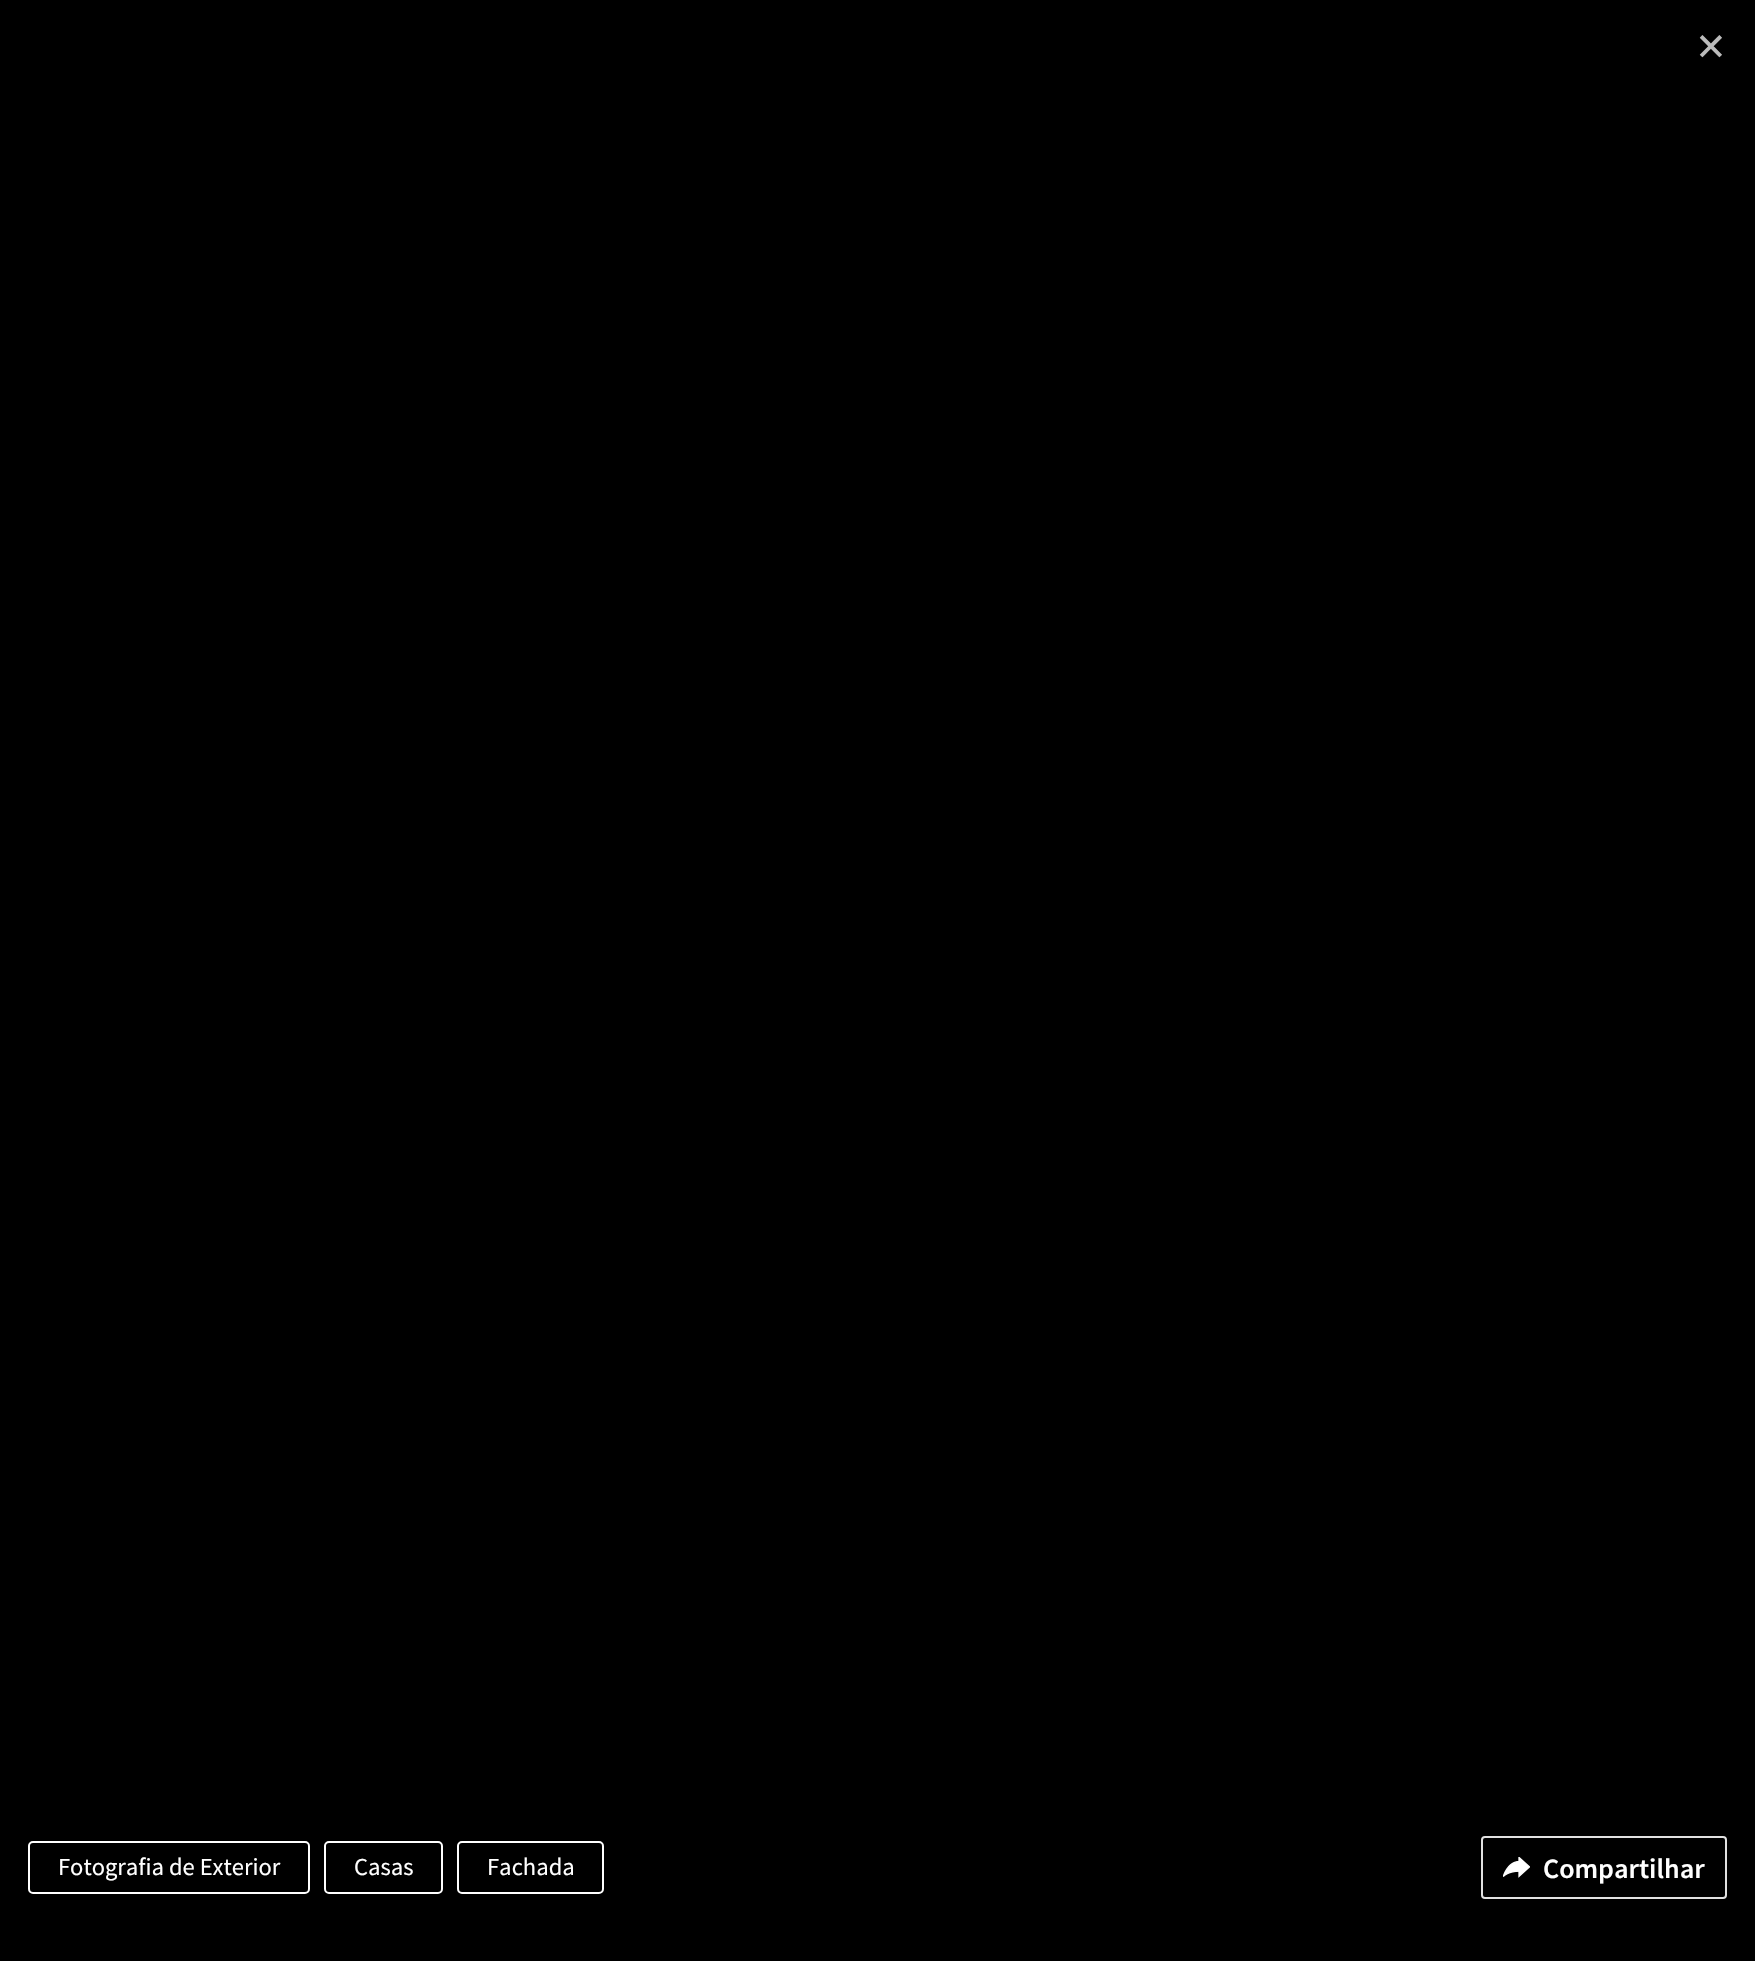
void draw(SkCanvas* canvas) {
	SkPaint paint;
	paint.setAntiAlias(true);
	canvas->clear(0xff000000);
	SkFont f1(fontMgr->matchFamilyStyle("DejaVu Sans", SkFontStyle::Normal()), 38);
	f1.setSubpixel(true);
	paint.setColor(0xffbbbbbb);
	canvas->drawString("✕", 1695, 60, f1, paint);
	paint.setStroke(true);
	paint.setStrokeWidth(2);
	paint.setColor(0xffffffff);
	canvas->drawRoundRect(SkRect::MakeXYWH(29, 1842, 280, 51), 4, 4, paint);
	SkFont f2(fontMgr->matchFamilyStyle("Source Sans Pro", SkFontStyle::Normal()), 24.5);
	f2.setSubpixel(true);
	paint.setStroke(false);
	canvas->drawString("Fotografia de Exterior", 58, 1875, f2, paint);
	paint.setStroke(true);
	canvas->drawRoundRect(SkRect::MakeXYWH(325, 1842, 117, 51), 4, 4, paint);
	paint.setStroke(false);
	canvas->drawString("Casas", 354, 1875, f2, paint);
	paint.setStroke(true);
	canvas->drawRoundRect(SkRect::MakeXYWH(458, 1842, 145, 51), 4, 4, paint);
	paint.setStroke(false);
	canvas->drawString("Fachada", 487, 1875, f2, paint);
	paint.setStroke(true);
	paint.setColor(0xffe1e1e1);
	canvas->drawRoundRect(SkRect::MakeXYWH(1482, 1837, 244, 61), 3, 3, paint);
	canvas->drawImageRect(SkImages::DeferredFromEncodedData(SkData::MakeFromFileName("img1.png")), SkRect::MakeXYWH(1503, 1857, 27, 21), SkSamplingOptions());
	SkFont f3(fontMgr->matchFamilyStyle("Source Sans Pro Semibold", SkFontStyle(600, SkFontStyle::kNormal_Width, SkFontStyle::kUpright_Slant)), 28);
	f3.setSubpixel(true);
	paint.setStroke(false);
	paint.setColor(0xffffffff);
	canvas->drawString("Compartilhar", 1543, 1878, f3, paint);
}
